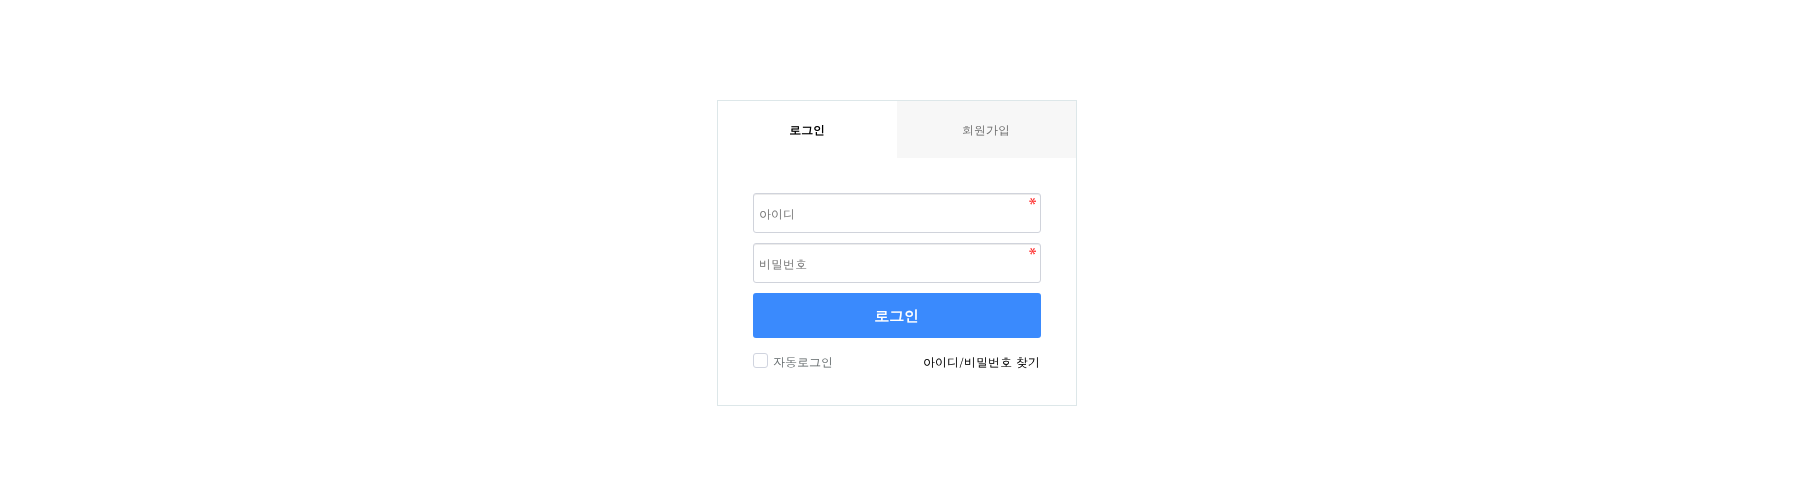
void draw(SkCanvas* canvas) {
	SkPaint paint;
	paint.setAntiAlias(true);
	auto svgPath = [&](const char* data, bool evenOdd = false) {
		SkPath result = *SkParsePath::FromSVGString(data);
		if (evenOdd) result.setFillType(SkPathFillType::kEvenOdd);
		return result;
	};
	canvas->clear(0xffffffff);
	paint.setStroke(true);
	paint.setStrokeWidth(1);
	paint.setColor(0xffdde7e9);
	canvas->drawRect(SkRect::MakeXYWH(717.5, 100.5, 359, 305), paint);
	SkFont f1(fontMgr->matchFamilyStyle("Dotum", SkFontStyle::Bold()), 12);
	f1.setSubpixel(true);
	paint.setStroke(false);
	paint.setColor(0xff000000);
	canvas->drawString("로그인", 789, 135, f1, paint);
	paint.setColor(0xfff7f7f7);
	canvas->drawRect(SkRect::MakeXYWH(897, 101, 179, 57), paint);
	SkFont f2(fontMgr->matchFamilyStyle("Dotum", SkFontStyle::Normal()), 12);
	f2.setSubpixel(true);
	paint.setColor(0xff6e6e6e);
	canvas->drawString("회원가입", 962, 135, f2, paint);
	canvas->drawImageRect(SkImages::DeferredFromEncodedData(SkData::MakeFromFileName("img1.png")), SkRect::MakeXYWH(1029, 198, 7, 7), SkSamplingOptions());
	paint.setColor(0xffececec);
	canvas->drawPath(svgPath("M756 195H1038C1039 195 1040 196 1040 197C1040 196 1040 194 1038 194H756C754 194 754 196 754 197C754 196 755 195 756 195Z"), paint);
	paint.setStroke(true);
	paint.setColor(0xffd0d3db);
	canvas->drawRoundRect(SkRect::MakeXYWH(753.5, 193.5, 287, 39), 2.5, 2.5, paint);
	paint.setStroke(false);
	paint.setColor(0xff757575);
	canvas->drawString("아이디", 759, 219, f2, paint);
	canvas->drawImageRect(SkImages::DeferredFromEncodedData(SkData::MakeFromFileName("img1.png")), SkRect::MakeXYWH(1029, 248, 7, 7), SkSamplingOptions());
	paint.setColor(0xffececec);
	canvas->drawPath(svgPath("M756 245H1038C1039 245 1040 246 1040 247C1040 246 1040 244 1038 244H756C754 244 754 246 754 247C754 246 755 245 756 245Z"), paint);
	paint.setStroke(true);
	paint.setColor(0xffd0d3db);
	canvas->drawRoundRect(SkRect::MakeXYWH(753.5, 243.5, 287, 39), 2.5, 2.5, paint);
	paint.setStroke(false);
	paint.setColor(0xff757575);
	canvas->drawString("비밀번호", 759, 269, f2, paint);
	paint.setColor(0xff3a8afd);
	canvas->drawRoundRect(SkRect::MakeXYWH(753, 293, 288, 45), 3, 3, paint);
	SkFont f3(fontMgr->matchFamilyStyle("Dotum", SkFontStyle::Bold()), 15);
	f3.setSubpixel(true);
	paint.setColor(0xffffffff);
	canvas->drawString("로그인", 874, 322, f3, paint);
	paint.setStroke(true);
	paint.setColor(0xffd0d4df);
	canvas->drawRoundRect(SkRect::MakeXYWH(753.5, 353.5, 14, 14), 2.5, 2.5, paint);
	paint.setStroke(false);
	paint.setColor(0xff676e70);
	canvas->drawString("자동로그인", 773, 367, f2, paint);
	paint.setColor(0xff000000);
	canvas->drawString("아이디/비밀번호 찾기", 923, 367, f2, paint);
}
